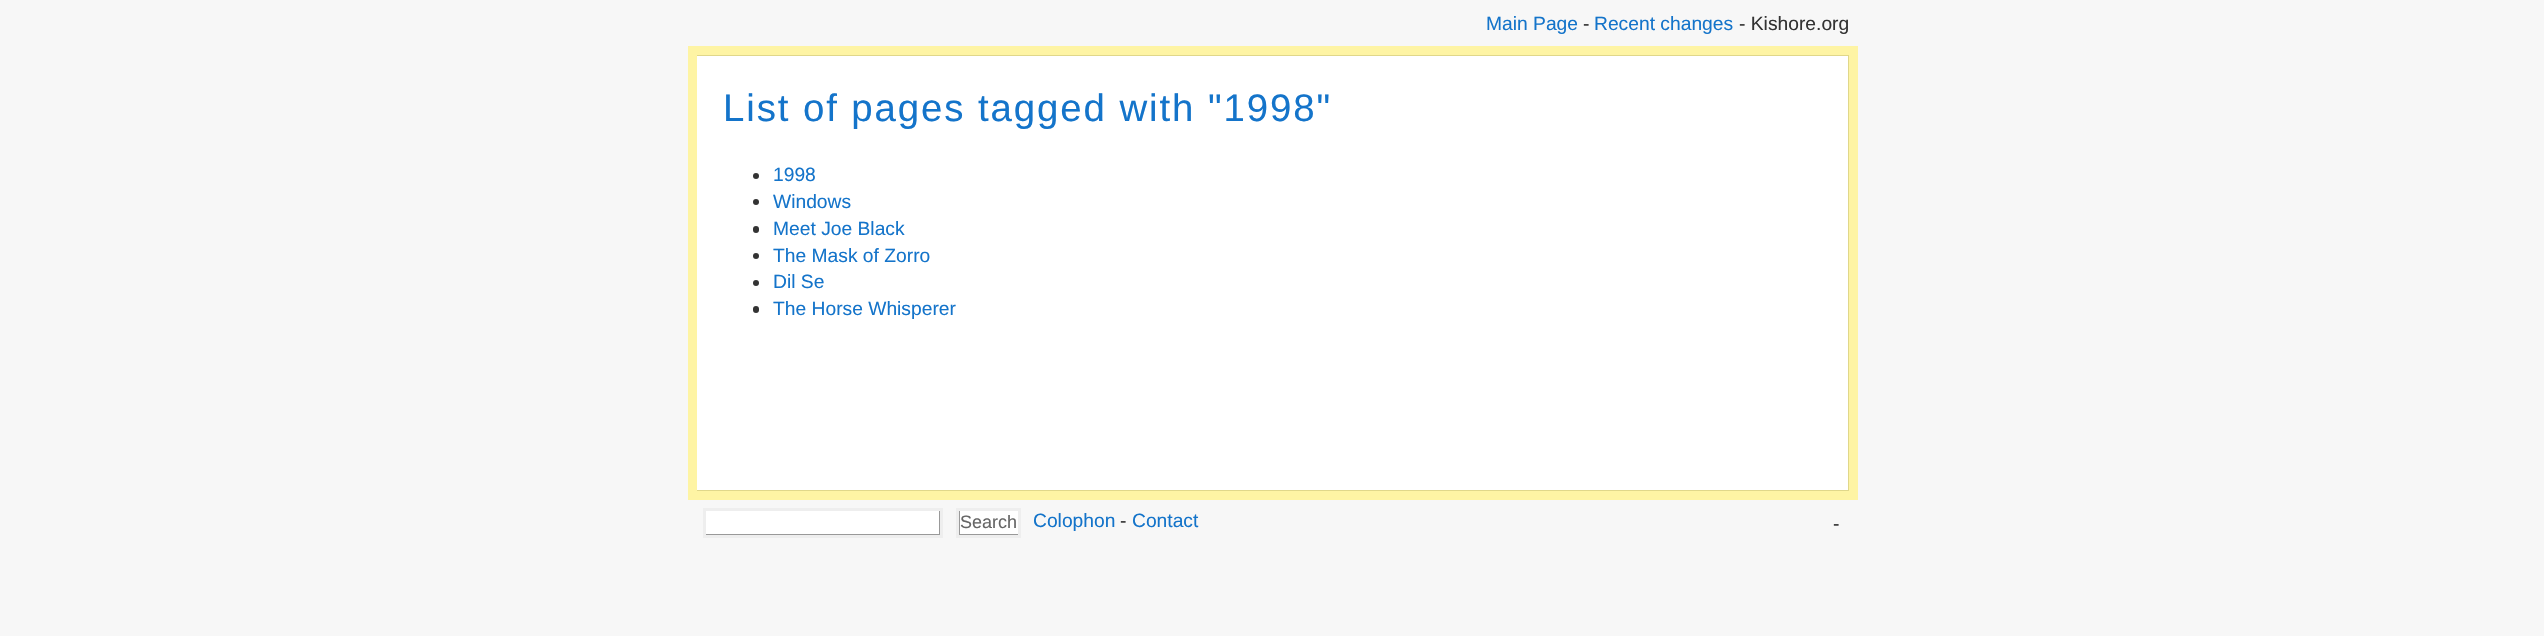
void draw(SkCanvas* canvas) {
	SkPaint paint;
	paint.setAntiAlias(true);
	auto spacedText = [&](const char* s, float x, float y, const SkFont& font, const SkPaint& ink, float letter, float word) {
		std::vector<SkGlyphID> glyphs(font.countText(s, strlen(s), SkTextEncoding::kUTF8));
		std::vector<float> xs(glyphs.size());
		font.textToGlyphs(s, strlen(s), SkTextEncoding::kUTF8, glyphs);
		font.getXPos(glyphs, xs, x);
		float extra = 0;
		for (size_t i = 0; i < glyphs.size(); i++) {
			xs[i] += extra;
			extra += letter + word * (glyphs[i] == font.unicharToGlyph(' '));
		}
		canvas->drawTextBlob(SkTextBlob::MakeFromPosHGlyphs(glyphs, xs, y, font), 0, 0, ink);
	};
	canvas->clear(0xfff7f7f7);
	SkFont f1(fontMgr->matchFamilyStyle("Liberation Sans", SkFontStyle::Normal()), 19.25);
	f1.setSubpixel(true);
	paint.setColor(0xff1474ca);
	canvas->drawString("Main Page", 1486, 30, f1, paint);
	paint.setColor(0xff333333);
	canvas->drawString("-", 1583, 30, f1, paint);
	paint.setColor(0xff1474ca);
	canvas->drawString("Recent changes", 1594, 30, f1, paint);
	paint.setColor(0xff333333);
	canvas->drawString("- Kishore.org", 1739, 30, f1, paint);
	paint.setColor(0xffffffff);
	canvas->drawRect(SkRect::MakeXYWH(696.5, 55.5, 1152, 435), paint);
	paint.setStroke(true);
	paint.setStrokeWidth(1);
	paint.setColor(0xffe0d78a);
	canvas->drawRect(SkRect::MakeXYWH(696.5, 55.5, 1152, 435), paint);
	paint.setStroke(false);
	paint.setColor(0xff333333);
	canvas->drawCircle(756, 176, 3, paint);
	canvas->drawCircle(756, 202, 3, paint);
	canvas->drawRoundRect(SkRect::MakeXYWH(753, 226, 6, 7), 3, 3, paint);
	canvas->drawCircle(756, 256, 3, paint);
	canvas->drawCircle(756, 283, 3, paint);
	canvas->drawRoundRect(SkRect::MakeXYWH(753, 306, 6, 7), 3, 3, paint);
	paint.setStroke(true);
	paint.setStrokeWidth(9);
	paint.setColor(0xfffef4a4);
	canvas->drawRect(SkRect::MakeXYWH(692.5, 50.5, 1161, 445), paint);
	SkFont f2(fontMgr->matchFamilyStyle("Liberation Sans", SkFontStyle::Normal()), 38.4);
	f2.setSubpixel(true);
	paint.setStroke(false);
	paint.setColor(0xff1474ca);
	spacedText("List of pages tagged with \"1998\"", 723, 121, f2, paint, 1.9, 0);
	canvas->drawString("1998", 773, 181, f1, paint);
	canvas->drawString("Windows", 773, 208, f1, paint);
	canvas->drawString("Meet Joe Black", 773, 235, f1, paint);
	canvas->drawString("The Mask of Zorro", 773, 262, f1, paint);
	canvas->drawString("Dil Se", 773, 288, f1, paint);
	canvas->drawString("The Horse Whisperer", 773, 315, f1, paint);
	paint.setColor(0xffffffff);
	canvas->drawRect(SkRect::MakeXYWH(705.5, 510.5, 234, 24), paint);
	paint.setStroke(true);
	paint.setStrokeWidth(1);
	paint.setColor(0xff999999);
	canvas->drawRect(SkRect::MakeXYWH(705.5, 510.5, 234, 24), paint);
	paint.setStrokeWidth(3);
	paint.setColor(0xffeeeeee);
	canvas->drawRect(SkRect::MakeXYWH(704.5, 509.5, 237, 27), paint);
	paint.setStroke(false);
	paint.setColor(0xffffffff);
	canvas->drawRect(SkRect::MakeXYWH(959.5, 510.5, 59, 24), paint);
	paint.setStroke(true);
	paint.setStrokeWidth(1);
	paint.setColor(0xff999999);
	canvas->drawRect(SkRect::MakeXYWH(959.5, 510.5, 59, 24), paint);
	paint.setStrokeWidth(3);
	paint.setColor(0xffeeeeee);
	canvas->drawRect(SkRect::MakeXYWH(957.5, 509.5, 62, 27), paint);
	SkFont f3(fontMgr->matchFamilyStyle("Liberation Sans", SkFontStyle::Normal()), 18);
	f3.setSubpixel(true);
	paint.setStroke(false);
	paint.setColor(0xff666666);
	canvas->drawString("Search", 960, 528, f3, paint);
	paint.setColor(0xff1474ca);
	canvas->drawString("Colophon", 1033, 527, f1, paint);
	paint.setColor(0xff333333);
	canvas->drawString("-", 1120, 527, f1, paint);
	paint.setColor(0xff1474ca);
	canvas->drawString("Contact", 1132, 527, f1, paint);
	paint.setColor(0xff333333);
	canvas->drawString("-", 1833, 530, f1, paint);
}
